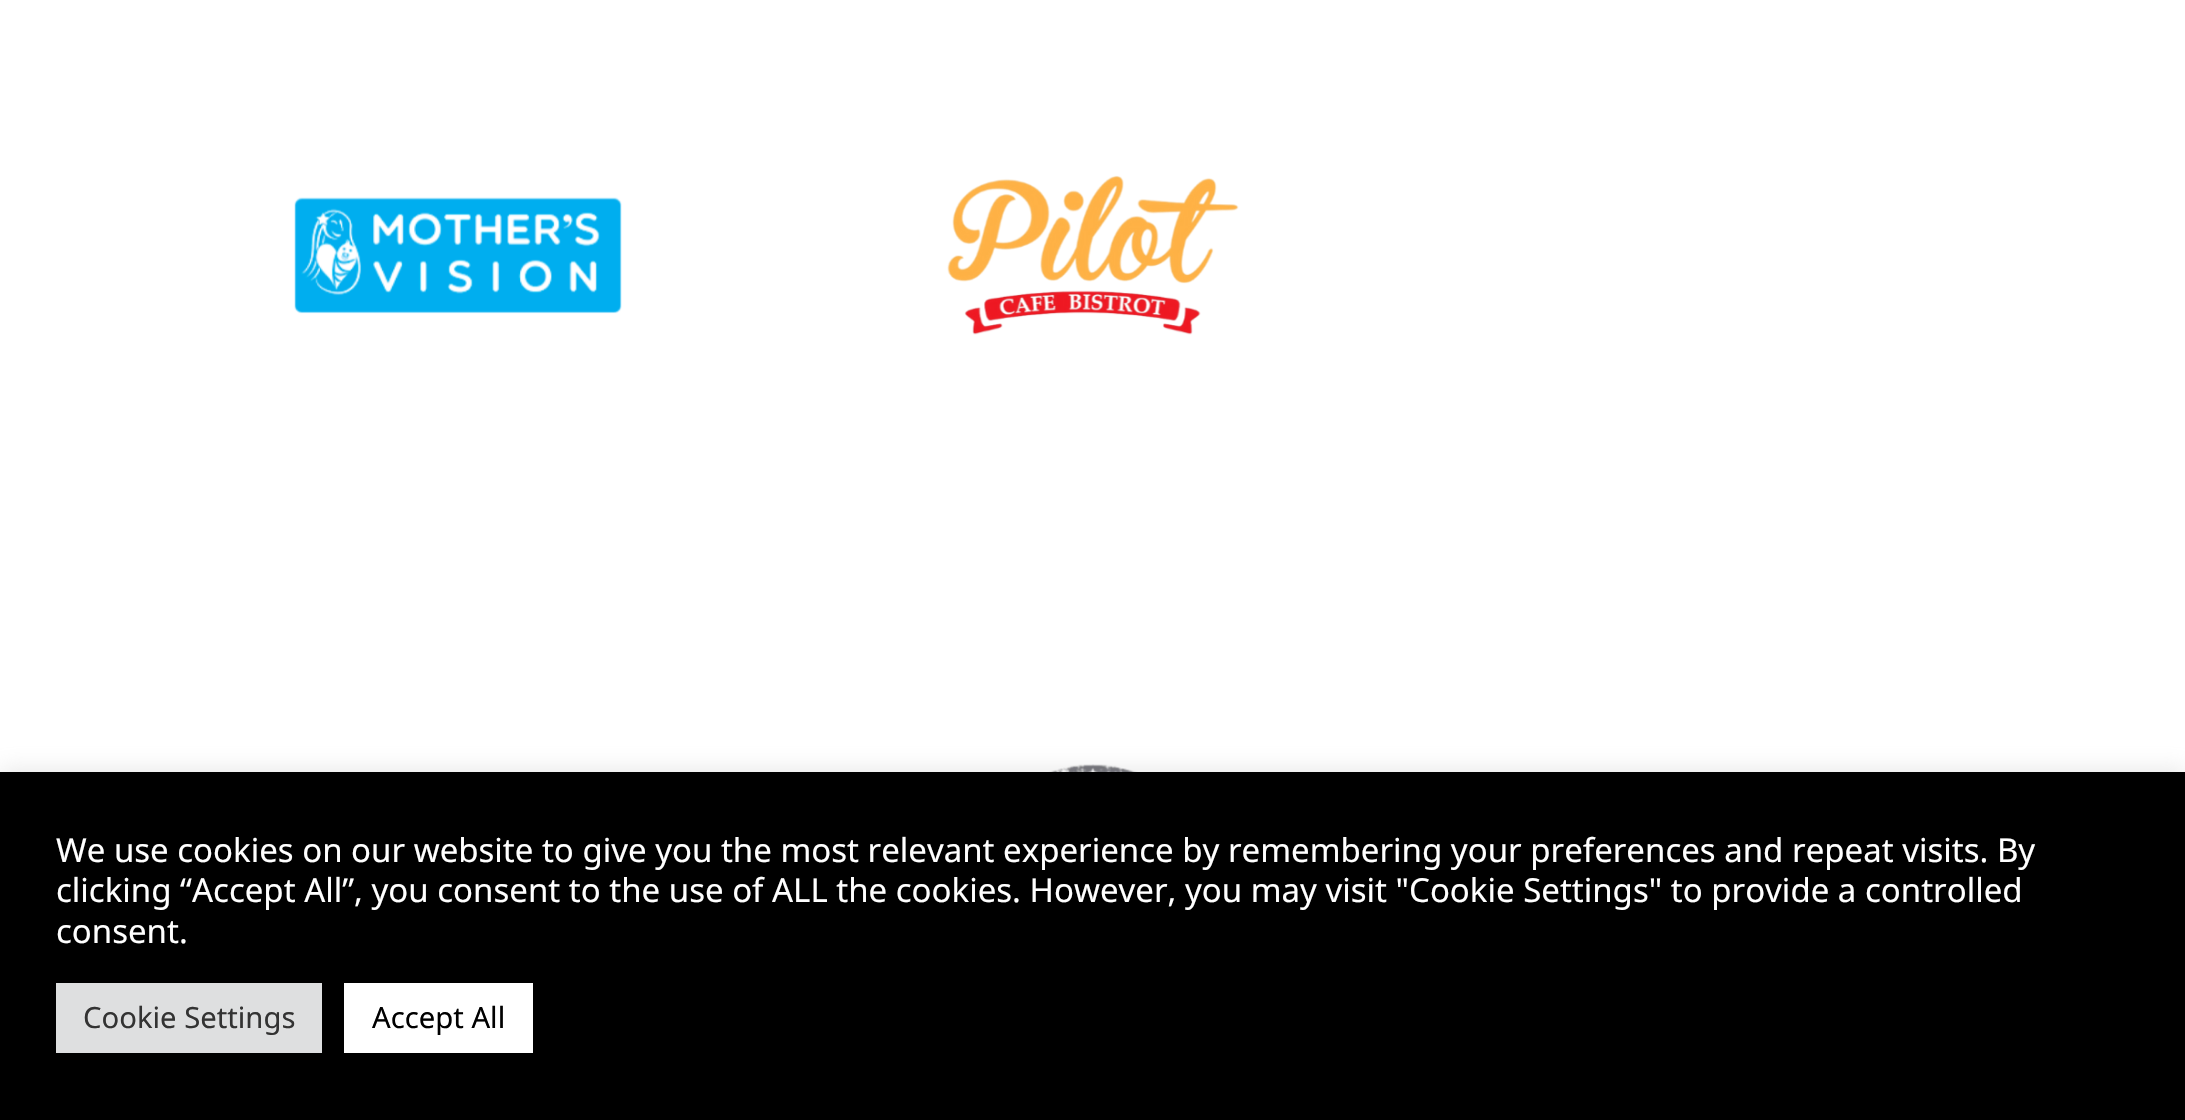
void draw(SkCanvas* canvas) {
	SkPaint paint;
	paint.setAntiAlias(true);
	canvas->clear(0xffffffff);
	canvas->drawImageRect(SkImages::DeferredFromEncodedData(SkData::MakeFromFileName("img1.png")), SkRect::MakeXYWH(294, 197, 328, 117), SkSamplingOptions());
	canvas->drawImageRect(SkImages::DeferredFromEncodedData(SkData::MakeFromFileName("img2.png")), SkRect::MakeXYWH(947, 175, 292, 160), SkSamplingOptions());
	canvas->drawImageRect(SkImages::DeferredFromEncodedData(SkData::MakeFromFileName("img3.png")), SkRect::MakeXYWH(1048, 764, 90, 8), SkSamplingOptions());
	paint.setColor(0x4dacabab);
	paint.setMaskFilter(SkMaskFilter::MakeBlur(kNormal_SkBlurStyle, 11));
	canvas->drawRect(SkRect::MakeXYWH(0, 770, 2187, 348), paint);
	paint.setMaskFilter(nullptr);
	paint.setColor(0xff000000);
	canvas->drawRect(SkRect::MakeXYWH(0, 772, 2185, 348), paint);
	SkFont f1(fontMgr->matchFamilyStyle("Noto Sans", SkFontStyle::Normal()), 33);
	f1.setSubpixel(true);
	paint.setColor(0xffffffff);
	canvas->drawString("We use cookies on our website to give you the most relevant experience by remembering your preferences and repeat visits. By", 56, 862, f1, paint);
	canvas->drawString("clicking “Accept All”, you consent to the use of ALL the cookies. However, you may visit \"Cookie Settings\" to provide a controlled", 56, 902, f1, paint);
	canvas->drawString("consent.", 56, 943, f1, paint);
	paint.setColor(0xffdedfe0);
	canvas->drawRect(SkRect::MakeXYWH(56, 983, 266, 70), paint);
	SkFont f2(fontMgr->matchFamilyStyle("Noto Sans", SkFontStyle::Normal()), 29.25);
	f2.setSubpixel(true);
	paint.setColor(0xff333333);
	canvas->drawString("Cookie Settings", 83, 1028, f2, paint);
	paint.setColor(0xffffffff);
	canvas->drawRect(SkRect::MakeXYWH(344, 983, 189, 70), paint);
	paint.setColor(0xff000000);
	canvas->drawString("Accept All", 372, 1028, f2, paint);
}
